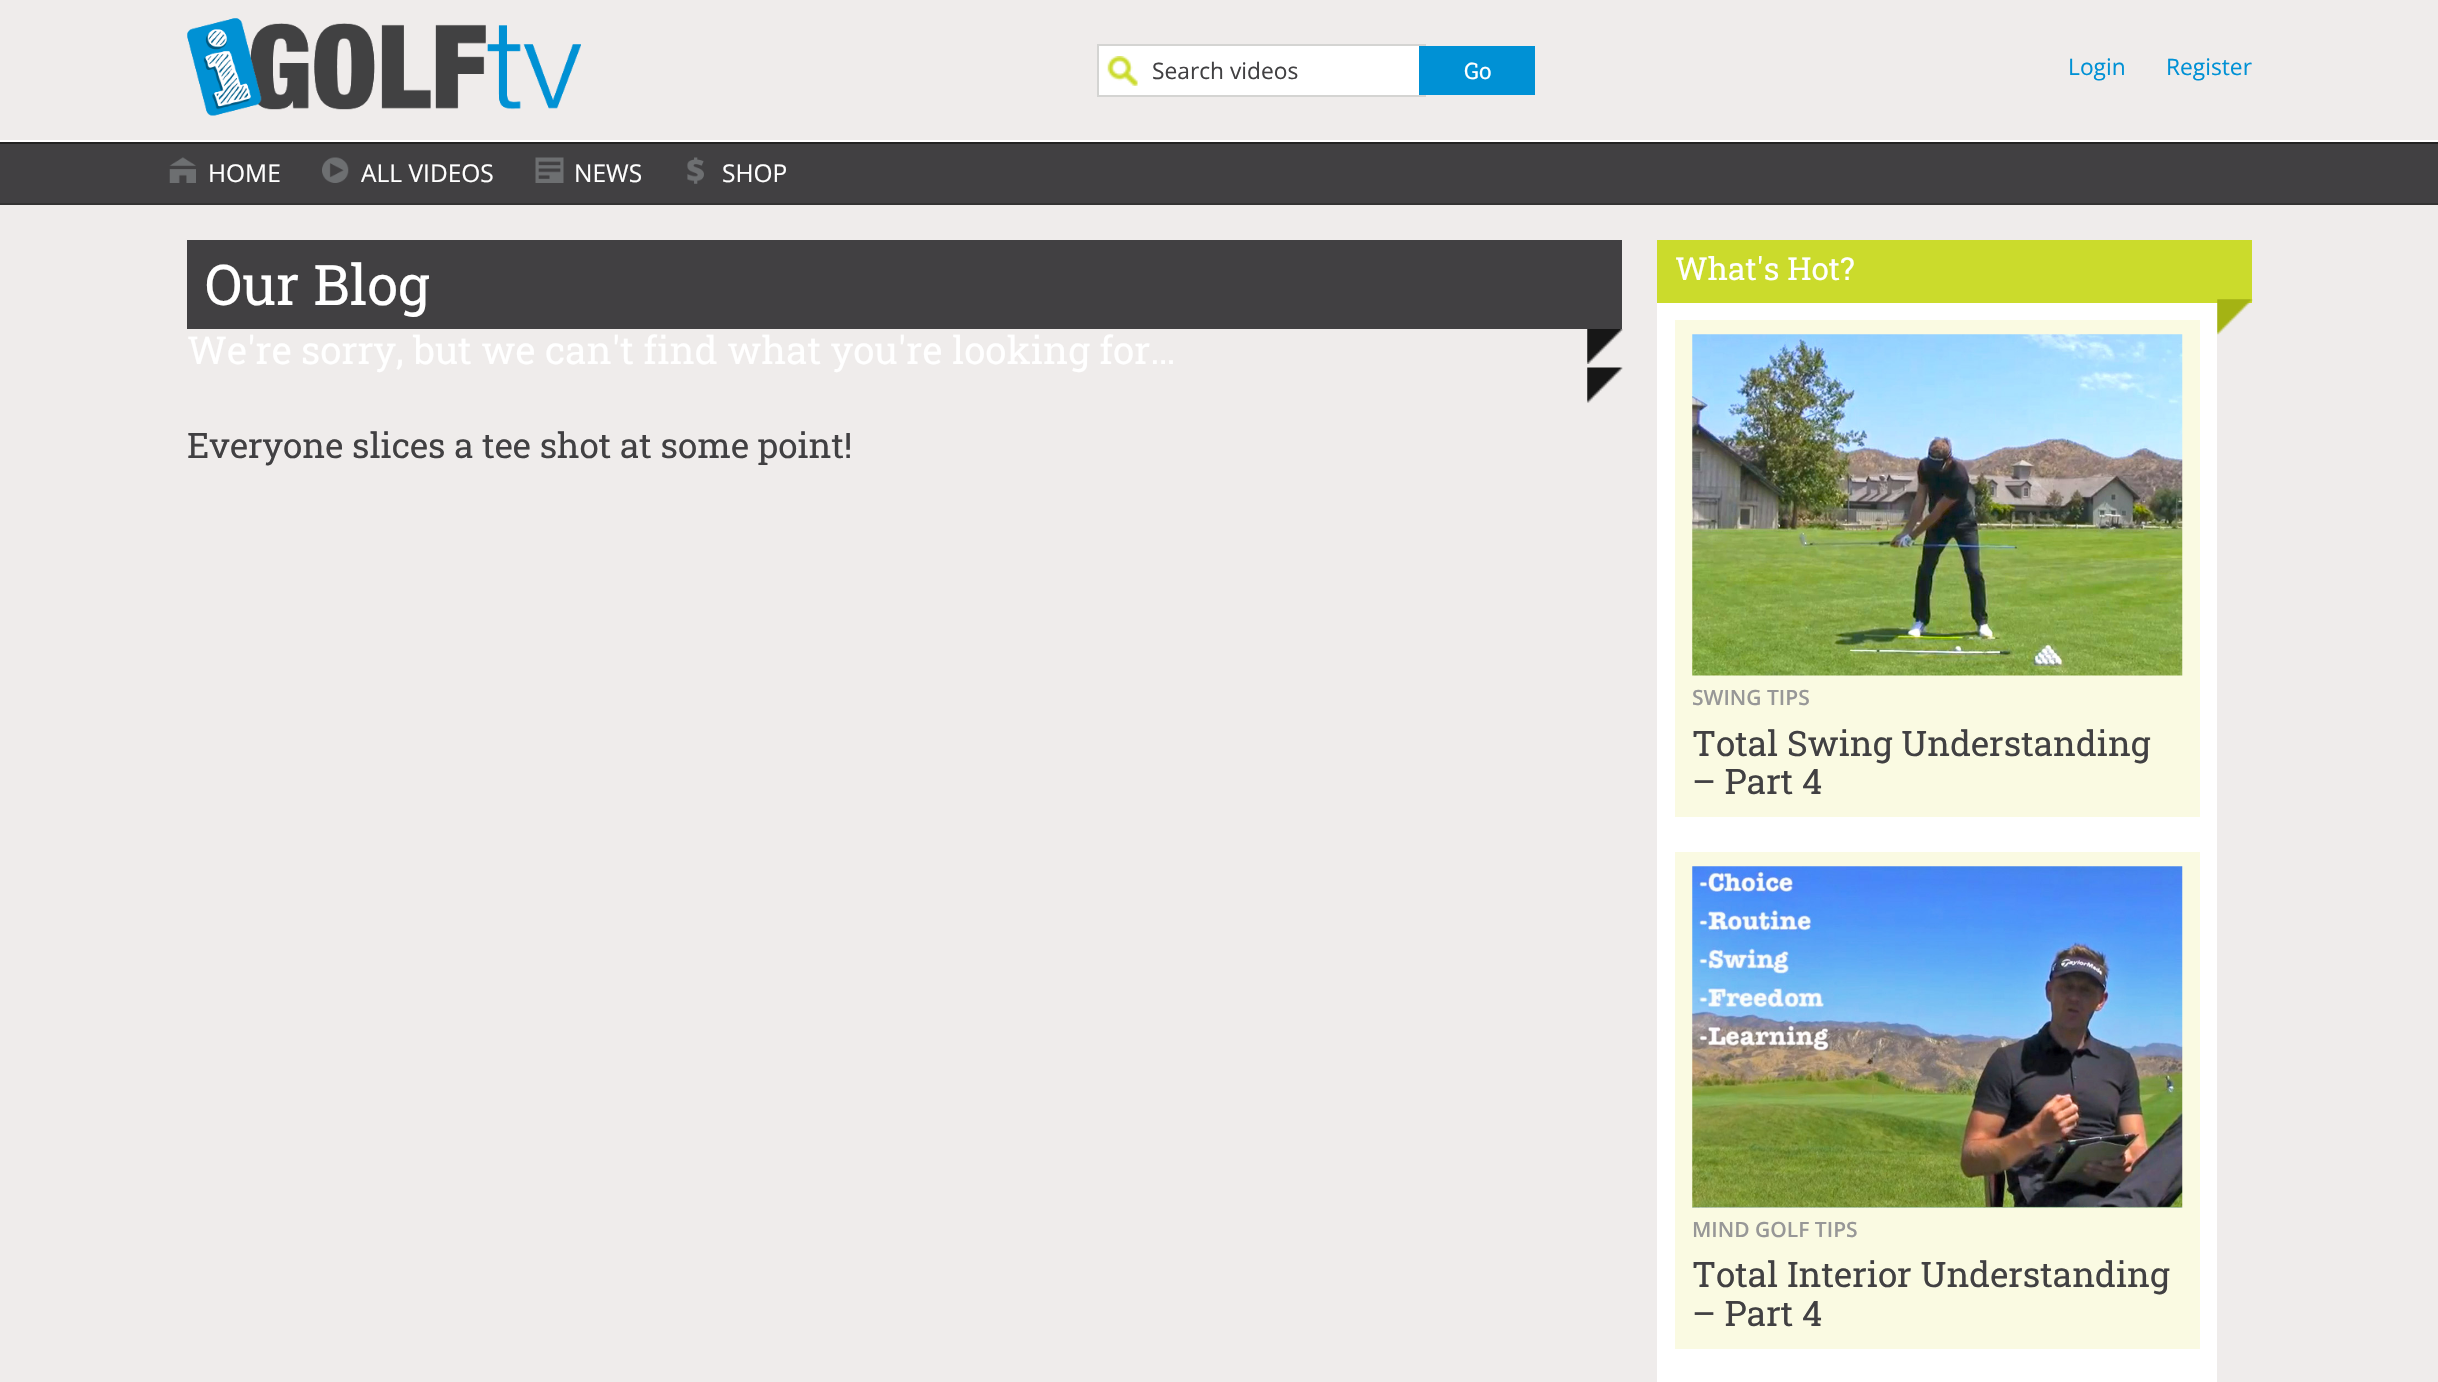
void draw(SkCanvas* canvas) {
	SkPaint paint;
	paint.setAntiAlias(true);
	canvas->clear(0xffefeceb);
	paint.setColor(0xffffffff);
	canvas->drawRect(SkRect::MakeXYWH(0, 140, 2438, 2), paint);
	canvas->drawImageRect(SkImages::DeferredFromEncodedData(SkData::MakeFromFileName("img1.png")), SkRect::MakeXYWH(187, 18, 394, 98), SkSamplingOptions());
	canvas->drawRect(SkRect::MakeXYWH(1099, 46, 320, 49), paint);
	canvas->drawImageRect(SkImages::DeferredFromEncodedData(SkData::MakeFromFileName("img2.png")), SkRect::MakeXYWH(1107, 56, 31, 30), SkSamplingOptions());
	paint.setColor(0xffd4d4d2);
	canvas->drawRect(SkRect::MakeXYWH(1097, 44, 329, 2), paint);
	canvas->drawRect(SkRect::MakeXYWH(1097, 95, 329, 2), paint);
	canvas->drawRect(SkRect::MakeXYWH(1097, 44, 2, 52), paint);
	SkFont f1(fontMgr->matchFamilyStyle("Open Sans", SkFontStyle::Normal()), 22.75);
	f1.setSubpixel(true);
	paint.setColor(0xff414042);
	canvas->drawString("Search videos", 1152, 79, f1, paint);
	paint.setColor(0xff0091d5);
	canvas->drawRect(SkRect::MakeXYWH(1419, 46, 116, 49), paint);
	SkFont f2(fontMgr->matchFamilyStyle("Roboto Slab", SkFontStyle::Normal()), 22.75);
	f2.setSubpixel(true);
	paint.setColor(0xffffffff);
	canvas->drawString("Go", 1464, 79, f2, paint);
	paint.setColor(0xff0091d5);
	canvas->drawString("Login", 2068, 75, f1, paint);
	canvas->drawString("Register", 2166, 75, f1, paint);
	paint.setColor(0xff414042);
	canvas->drawRect(SkRect::MakeXYWH(0, 144, 2438, 59), paint);
	paint.setColor(0xff222222);
	canvas->drawRect(SkRect::MakeXYWH(0, 142, 2438, 2), paint);
	paint.setColor(0xff333333);
	canvas->drawRect(SkRect::MakeXYWH(0, 203, 2438, 2), paint);
	canvas->drawImageRect(SkImages::DeferredFromEncodedData(SkData::MakeFromFileName("img3.png")), SkRect::MakeXYWH(169, 157, 27, 26), SkSamplingOptions());
	SkFont f3(fontMgr->matchFamilyStyle("Open Sans", SkFontStyle::Normal()), 24.5);
	f3.setSubpixel(true);
	paint.setColor(0xffffffff);
	canvas->drawString("HOME", 208, 182, f3, paint);
	canvas->drawImageRect(SkImages::DeferredFromEncodedData(SkData::MakeFromFileName("img4.png")), SkRect::MakeXYWH(322, 157, 27, 26), SkSamplingOptions());
	canvas->drawString("ALL VIDEOS", 361, 182, f3, paint);
	canvas->drawImageRect(SkImages::DeferredFromEncodedData(SkData::MakeFromFileName("img5.png")), SkRect::MakeXYWH(535, 157, 29, 26), SkSamplingOptions());
	canvas->drawString("NEWS", 574, 182, f3, paint);
	canvas->drawImageRect(SkImages::DeferredFromEncodedData(SkData::MakeFromFileName("img6.png")), SkRect::MakeXYWH(687, 157, 17, 27), SkSamplingOptions());
	canvas->drawString("SHOP", 722, 182, f3, paint);
	paint.setColor(0xff414042);
	canvas->drawRect(SkRect::MakeXYWH(187, 240, 1435, 89), paint);
	SkFont f4(fontMgr->matchFamilyStyle("Roboto Slab", SkFontStyle::Normal()), 56);
	f4.setSubpixel(true);
	paint.setColor(0xffffffff);
	canvas->drawString("Our Blog", 205, 305, f4, paint);
	canvas->drawImageRect(SkImages::DeferredFromEncodedData(SkData::MakeFromFileName("img7.png")), SkRect::MakeXYWH(1587, 329, 36, 35), SkSamplingOptions());
	SkFont f5(fontMgr->matchFamilyStyle("Roboto Slab", SkFontStyle::Normal()), 38.5);
	f5.setSubpixel(true);
	canvas->drawString("We're sorry, but we can't find what you're looking for…", 187, 364, f5, paint);
	canvas->drawImageRect(SkImages::DeferredFromEncodedData(SkData::MakeFromFileName("img8.png")), SkRect::MakeXYWH(1587, 367, 36, 36), SkSamplingOptions());
	SkFont f6(fontMgr->matchFamilyStyle("Roboto Slab", SkFontStyle::Normal()), 35);
	f6.setSubpixel(true);
	paint.setColor(0xff414042);
	canvas->drawString("Everyone slices a tee shot at some point!", 187, 458, f6, paint);
	paint.setColor(0xffcbdb2c);
	canvas->drawRect(SkRect::MakeXYWH(1657, 240, 595, 63), paint);
	SkFont f7(fontMgr->matchFamilyStyle("Roboto Slab", SkFontStyle::Normal()), 31.5);
	f7.setSubpixel(true);
	paint.setColor(0xffffffff);
	canvas->drawString("What's Hot?", 1675, 280, f7, paint);
	canvas->drawImageRect(SkImages::DeferredFromEncodedData(SkData::MakeFromFileName("img9.png")), SkRect::MakeXYWH(2217, 299, 36, 36), SkSamplingOptions());
	canvas->drawRect(SkRect::MakeXYWH(1657, 303, 560, 1079), paint);
	paint.setColor(0xfffafae2);
	canvas->drawRect(SkRect::MakeXYWH(1675, 320, 525, 497), paint);
	canvas->drawImageRect(SkImages::DeferredFromEncodedData(SkData::MakeFromFileName("img10.png")), SkRect::MakeXYWH(1692, 334, 491, 342), SkSamplingOptions());
	SkFont f8(fontMgr->matchFamilyStyle("Open Sans", SkFontStyle(600, SkFontStyle::kNormal_Width, SkFontStyle::kUpright_Slant)), 21);
	f8.setSubpixel(true);
	paint.setColor(0xff979797);
	canvas->drawString("SWING TIPS", 1692, 705, f8, paint);
	paint.setColor(0xff414042);
	canvas->drawString("Total Swing Understanding", 1692, 756, f6, paint);
	canvas->drawString("– Part 4", 1692, 794, f6, paint);
	paint.setColor(0xfffafae2);
	canvas->drawRect(SkRect::MakeXYWH(1675, 852, 525, 497), paint);
	canvas->drawImageRect(SkImages::DeferredFromEncodedData(SkData::MakeFromFileName("img11.png")), SkRect::MakeXYWH(1692, 866, 491, 342), SkSamplingOptions());
	paint.setColor(0xff979797);
	canvas->drawString("MIND GOLF TIPS", 1692, 1237, f8, paint);
	paint.setColor(0xff414042);
	canvas->drawString("Total Interior Understanding", 1692, 1287, f6, paint);
	canvas->drawString("– Part 4", 1692, 1326, f6, paint);
}
